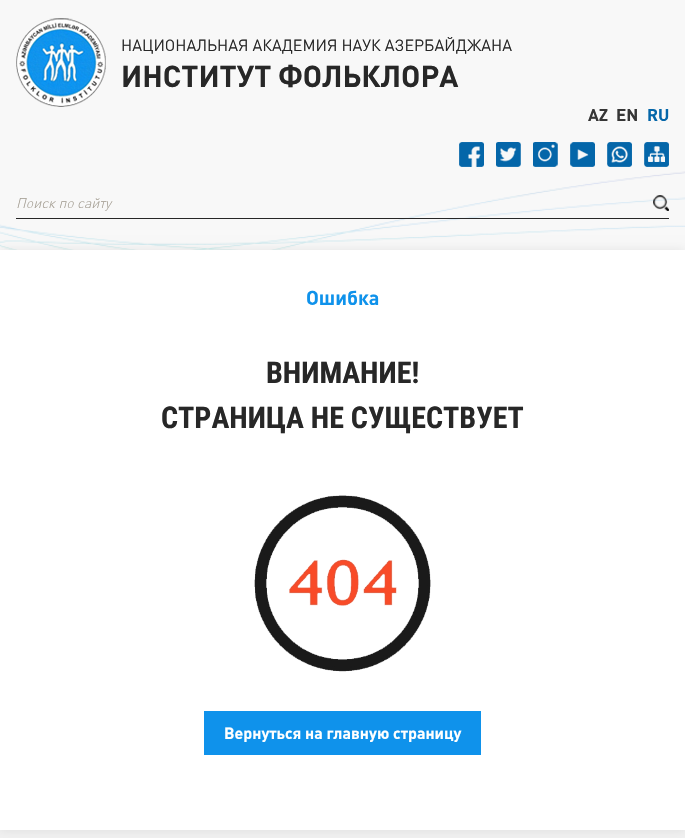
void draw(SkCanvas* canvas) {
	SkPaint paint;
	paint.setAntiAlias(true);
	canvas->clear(0xfff8f8f8);
	canvas->drawImageRect(SkImages::DeferredFromEncodedData(SkData::MakeFromFileName("img1.png")), SkRect::MakeXYWH(16, 18, 90, 89), SkSamplingOptions());
	SkFont f1(fontMgr->matchFamilyStyle("DIN", SkFontStyle::Normal()), 16);
	f1.setSubpixel(true);
	paint.setColor(0xff272727);
	canvas->drawString("НАЦИОНАЛЬНАЯ АКАДЕМИЯ НАУК АЗЕРБАЙДЖАНА", 121, 51, f1, paint);
	SkFont f2(fontMgr->matchFamilyStyle("DIN", SkFontStyle::Bold()), 30);
	f2.setSubpixel(true);
	canvas->drawString("ИНСТИТУТ ФОЛЬКЛОРА", 121, 87, f2, paint);
	SkFont f3(fontMgr->matchFamilyStyle("DIN", SkFontStyle::Bold()), 17);
	f3.setSubpixel(true);
	paint.setColor(0xff363636);
	canvas->drawString("AZ", 588, 121, f3, paint);
	canvas->drawString("EN", 616, 121, f3, paint);
	paint.setColor(0xff0466a9);
	canvas->drawString("RU", 647, 121, f3, paint);
	canvas->drawImageRect(SkImages::DeferredFromEncodedData(SkData::MakeFromFileName("img2.png")), SkRect::MakeXYWH(459, 142, 25, 25), SkSamplingOptions());
	canvas->drawImageRect(SkImages::DeferredFromEncodedData(SkData::MakeFromFileName("img3.png")), SkRect::MakeXYWH(496, 142, 25, 25), SkSamplingOptions());
	canvas->drawImageRect(SkImages::DeferredFromEncodedData(SkData::MakeFromFileName("img4.png")), SkRect::MakeXYWH(533, 142, 25, 25), SkSamplingOptions());
	canvas->drawImageRect(SkImages::DeferredFromEncodedData(SkData::MakeFromFileName("img5.png")), SkRect::MakeXYWH(570, 142, 25, 25), SkSamplingOptions());
	canvas->drawImageRect(SkImages::DeferredFromEncodedData(SkData::MakeFromFileName("img6.png")), SkRect::MakeXYWH(607, 142, 25, 25), SkSamplingOptions());
	canvas->drawImageRect(SkImages::DeferredFromEncodedData(SkData::MakeFromFileName("img7.png")), SkRect::MakeXYWH(644, 142, 25, 25), SkSamplingOptions());
	canvas->drawImageRect(SkImages::DeferredFromEncodedData(SkData::MakeFromFileName("img9.png")), SkRect::MakeXYWH(0, 171, 685, 79), SkSamplingOptions());
	paint.setColor(0xff272727);
	canvas->drawRect(SkRect::MakeXYWH(16, 218, 653, 1), paint);
	SkFont f4(fontMgr->matchFamilyStyle("DIN", SkFontStyle(300, SkFontStyle::kNormal_Width, SkFontStyle::kItalic_Slant)), 14);
	f4.setSubpixel(true);
	paint.setColor(0xffa49e93);
	canvas->drawString("Поиск по сайту", 16, 208, f4, paint);
	canvas->drawImageRect(SkImages::DeferredFromEncodedData(SkData::MakeFromFileName("img8.png")), SkRect::MakeXYWH(653, 195, 16, 16), SkSamplingOptions());
	paint.setColor(0xfff1f1f1);
	canvas->drawRect(SkRect::MakeXYWH(0, 830, 685, 8), paint);
	paint.setColor(0x14000000);
	paint.setMaskFilter(SkMaskFilter::MakeBlur(kNormal_SkBlurStyle, 5));
	canvas->drawRect(SkRect::MakeXYWH(0, 250, 685, 580), paint);
	paint.setMaskFilter(nullptr);
	paint.setColor(0xffffffff);
	canvas->drawRect(SkRect::MakeXYWH(0, 250, 685, 580), paint);
	SkFont f5(fontMgr->matchFamilyStyle("DIN", SkFontStyle::Bold()), 20);
	f5.setSubpixel(true);
	paint.setColor(0xff0f92eb);
	canvas->drawString("Ошибка", 306, 305, f5, paint);
	SkFont f6(fontMgr->matchFamilyStyle("Roboto Condensed", SkFontStyle::Bold()), 30);
	f6.setSubpixel(true);
	paint.setColor(0xff272727);
	canvas->drawString("ВНИМАНИЕ!", 266, 383, f6, paint);
	canvas->drawString("СТРАНИЦА НЕ СУЩЕСТВУЕТ", 161, 428, f6, paint);
	canvas->drawImageRect(SkImages::DeferredFromEncodedData(SkData::MakeFromFileName("img10.png")), SkRect::MakeXYWH(254, 495, 177, 177), SkSamplingOptions());
	paint.setColor(0xff0f92eb);
	canvas->drawRect(SkRect::MakeXYWH(204, 711, 277, 44), paint);
	SkFont f7(fontMgr->matchFamilyStyle("DIN", SkFontStyle::Bold()), 16);
	f7.setSubpixel(true);
	paint.setColor(0xffffffff);
	canvas->drawString("Вернуться на главную страницу", 224, 739, f7, paint);
}
